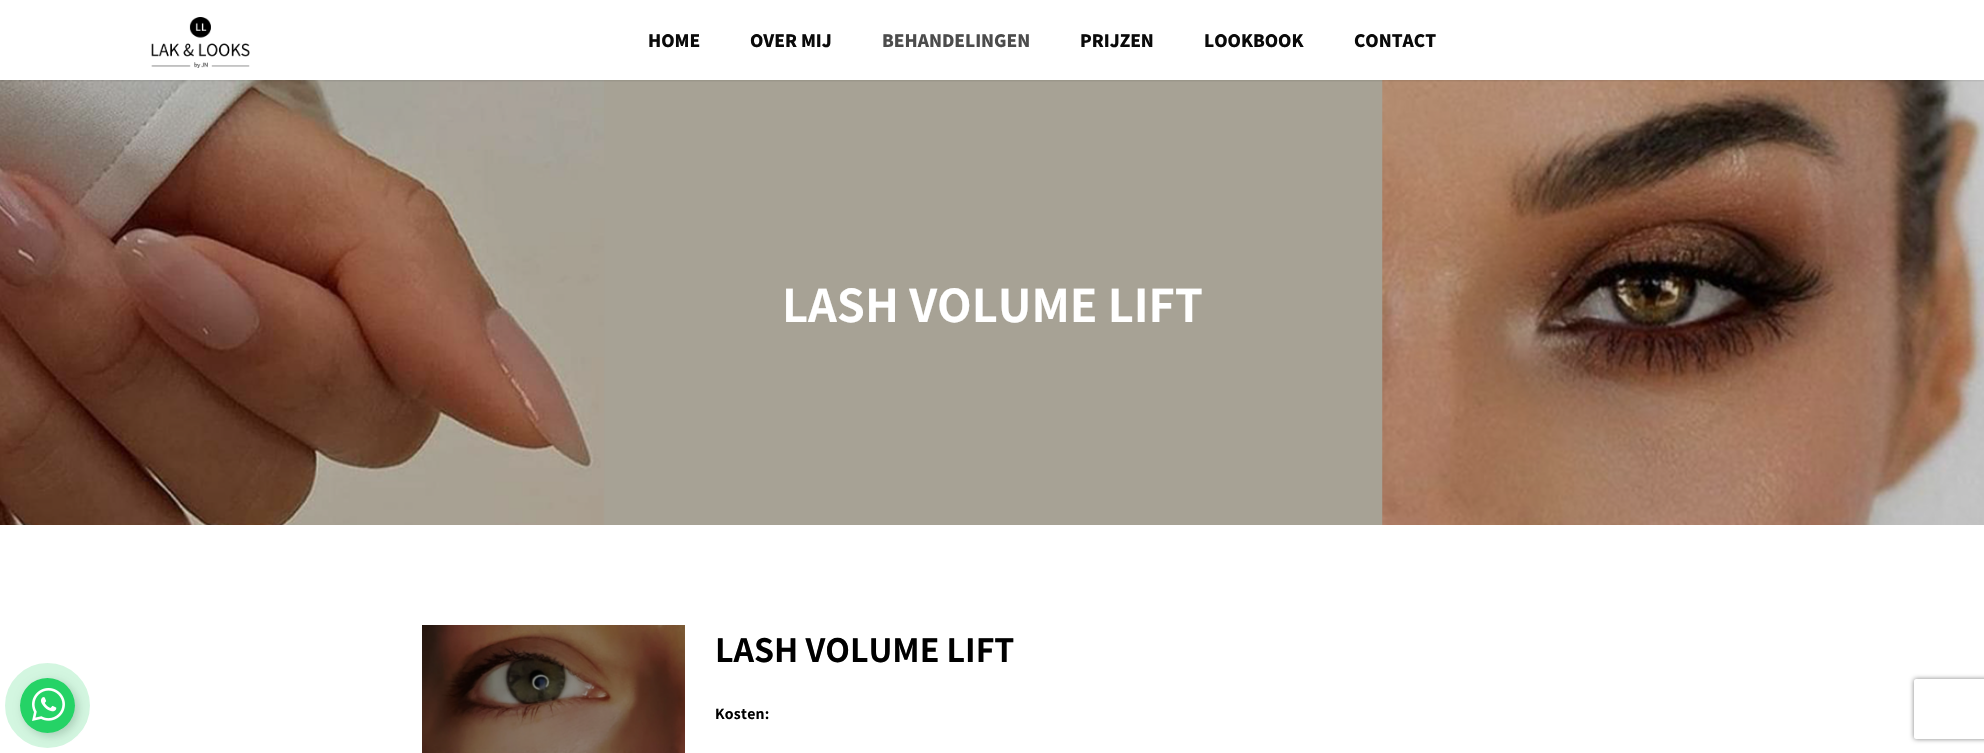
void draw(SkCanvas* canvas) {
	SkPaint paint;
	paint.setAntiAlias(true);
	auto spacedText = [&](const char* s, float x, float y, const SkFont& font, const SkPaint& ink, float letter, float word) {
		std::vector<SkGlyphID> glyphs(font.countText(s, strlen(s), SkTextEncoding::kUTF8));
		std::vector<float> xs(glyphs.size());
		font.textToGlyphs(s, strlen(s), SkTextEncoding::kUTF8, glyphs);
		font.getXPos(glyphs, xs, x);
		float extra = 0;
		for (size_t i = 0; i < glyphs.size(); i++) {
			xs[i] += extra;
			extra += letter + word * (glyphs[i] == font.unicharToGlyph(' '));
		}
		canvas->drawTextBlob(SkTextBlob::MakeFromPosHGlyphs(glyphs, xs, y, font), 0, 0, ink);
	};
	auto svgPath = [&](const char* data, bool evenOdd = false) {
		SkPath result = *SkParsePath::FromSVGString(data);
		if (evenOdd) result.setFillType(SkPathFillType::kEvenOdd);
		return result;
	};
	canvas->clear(0xffffffff);
	canvas->drawImageRect(SkImages::DeferredFromEncodedData(SkData::MakeFromFileName("img2.png")), SkRect::MakeXYWH(0, 80, 1984, 445), SkSamplingOptions());
	canvas->save();
	canvas->clipRect(SkRect::MakeXYWH(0, 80, 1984, 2));
	paint.setColor(0x1a000000);
	paint.setMaskFilter(SkMaskFilter::MakeBlur(kNormal_SkBlurStyle, 1));
	canvas->drawRect(SkRect::MakeXYWH(0, 1, 1984, 80), paint);
	paint.setMaskFilter(nullptr);
	canvas->restore();
	canvas->drawImageRect(SkImages::DeferredFromEncodedData(SkData::MakeFromFileName("img1.png")), SkRect::MakeXYWH(151, 17, 99, 51), SkSamplingOptions());
	SkFont f1(fontMgr->matchFamilyStyle("Noto Sans TC", SkFontStyle(900, SkFontStyle::kNormal_Width, SkFontStyle::kUpright_Slant)), 17);
	f1.setSubpixel(true);
	paint.setColor(0xff0a0a0a);
	canvas->drawString("HOME", 648, 47, f1, paint);
	canvas->drawString("OVER MIJ", 750, 47, f1, paint);
	paint.setColor(0xff4c4c4c);
	canvas->drawString("BEHANDELINGEN", 882, 47, f1, paint);
	paint.setColor(0xff0a0a0a);
	canvas->drawString("PRIJZEN", 1080, 47, f1, paint);
	canvas->drawString("LOOKBOOK", 1204, 47, f1, paint);
	canvas->drawString("CONTACT", 1354, 47, f1, paint);
	SkFont f2(fontMgr->matchFamilyStyle("Noto Sans TC", SkFontStyle::Bold()), 45);
	f2.setSubpixel(true);
	paint.setColor(0xffffffff);
	canvas->drawString("LASH VOLUME LIFT", 782, 322, f2, paint);
	paint.setColor(0x33000000);
	paint.setMaskFilter(SkMaskFilter::MakeBlur(kNormal_SkBlurStyle, 5));
	canvas->drawRoundRect(SkRect::MakeXYWH(23, 681, 55, 55), 27.5, 27.5, paint);
	paint.setMaskFilter(nullptr);
	paint.setColor(0xff25d366);
	canvas->drawCircle(47.5, 705.5, 27.5, paint);
	canvas->drawImageRect(SkImages::DeferredFromEncodedData(SkData::MakeFromFileName("img3.png")), SkRect::MakeXYWH(32, 688, 33, 33), SkSamplingOptions());
	paint.setStroke(true);
	paint.setStrokeWidth(15);
	paint.setColor(0x3325d366);
	canvas->drawCircle(47.5, 705.5, 35, paint);
	canvas->drawImageRect(SkImages::DeferredFromEncodedData(SkData::MakeFromFileName("img4.png")), SkRect::MakeXYWH(422, 625, 263, 128), SkSamplingOptions());
	SkFont f3(fontMgr->matchFamilyStyle("Noto Sans TC", SkFontStyle::Bold()), 32);
	f3.setSubpixel(true);
	paint.setStroke(false);
	paint.setColor(0xff000000);
	canvas->drawString("LASH VOLUME LIFT", 715, 662, f3, paint);
	SkFont f4(fontMgr->matchFamilyStyle("Noto Sans TC", SkFontStyle::Bold()), 14);
	f4.setSubpixel(true);
	spacedText("Kosten:", 715, 719, f4, paint, 0.25, 0);
	canvas->save();
	canvas->clipPath(svgPath("M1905 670H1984V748H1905ZM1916 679H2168C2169 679 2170 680 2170 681V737C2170 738 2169 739 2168 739H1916C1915 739 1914 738 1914 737V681C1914 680 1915 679 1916 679Z", true), true);
	paint.setColor(0xff808080);
	paint.setMaskFilter(SkMaskFilter::MakeBlur(kNormal_SkBlurStyle, 2.5));
	canvas->drawRoundRect(SkRect::MakeXYWH(1914, 679, 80, 60), 2, 2, paint);
	paint.setMaskFilter(nullptr);
	canvas->restore();
}
